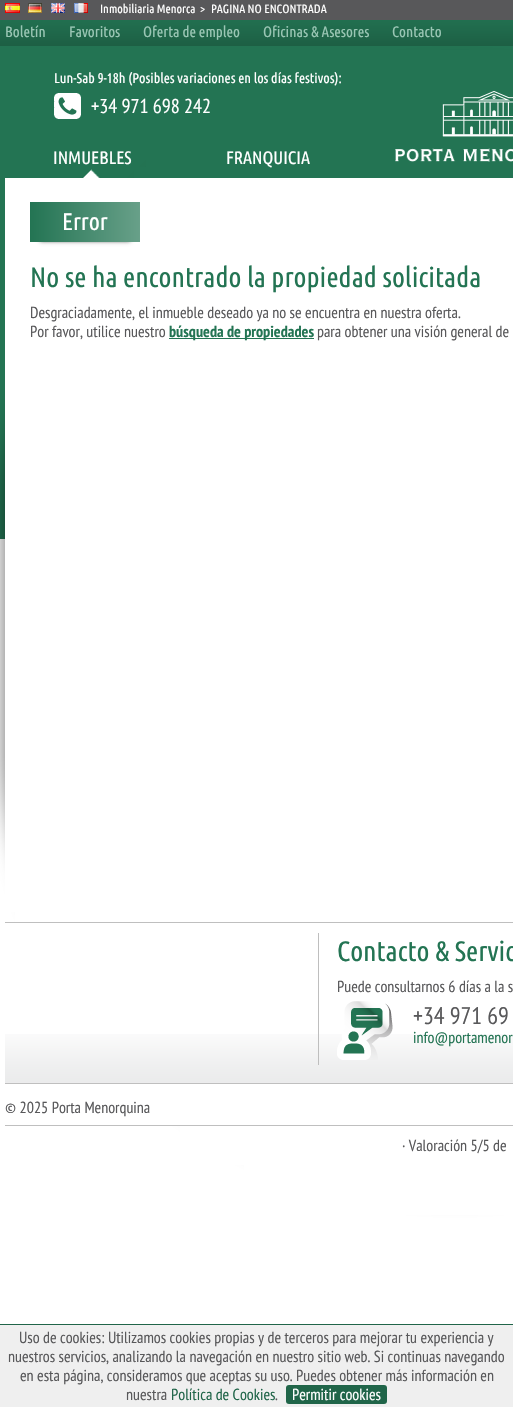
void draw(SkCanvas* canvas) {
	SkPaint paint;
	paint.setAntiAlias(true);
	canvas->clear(0xffffffff);
	canvas->drawImageRect(SkImages::DeferredFromEncodedData(SkData::MakeFromFileName("img1.png")), SkRect::MakeXYWH(0, 0, 513, 539), SkSamplingOptions());
	canvas->drawImageRect(SkImages::DeferredFromEncodedData(SkData::MakeFromFileName("img2.png")), SkRect::MakeXYWH(5, 3, 15, 10), SkSamplingOptions());
	canvas->drawImageRect(SkImages::DeferredFromEncodedData(SkData::MakeFromFileName("img3.png")), SkRect::MakeXYWH(28, 3, 14, 10), SkSamplingOptions());
	canvas->drawImageRect(SkImages::DeferredFromEncodedData(SkData::MakeFromFileName("img4.png")), SkRect::MakeXYWH(51, 3, 14, 10), SkSamplingOptions());
	canvas->drawImageRect(SkImages::DeferredFromEncodedData(SkData::MakeFromFileName("img5.png")), SkRect::MakeXYWH(74, 3, 14, 10), SkSamplingOptions());
	SkFont f1(fontMgr->matchFamilyStyle("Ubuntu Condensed", SkFontStyle::Normal()), 12);
	f1.setSubpixel(true);
	paint.setColor(0xffffffff);
	canvas->drawString("Inmobiliaria Menorca", 100, 13, f1, paint);
	canvas->drawString(">", 200, 13, f1, paint);
	canvas->drawString("PAGINA NO ENCONTRADA", 211, 13, f1, paint);
	paint.setColor(0x99000000);
	paint.setMaskFilter(SkMaskFilter::MakeBlur(kNormal_SkBlurStyle, 10));
	canvas->drawRoundRect(SkRect::MakeXYWH(5, 68, 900, 1126), 450, 450, paint);
	paint.setMaskFilter(nullptr);
	SkFont f2(fontMgr->matchFamilyStyle("Ubuntu Condensed", SkFontStyle::Normal()), 15);
	f2.setSubpixel(true);
	paint.setColor(0xff9ac6b4);
	canvas->drawString("Boletín", 5, 37, f2, paint);
	canvas->drawString("Favoritos", 69, 37, f2, paint);
	canvas->drawString("Oferta de empleo", 143, 37, f2, paint);
	canvas->drawString("Oficinas & Asesores", 263, 37, f2, paint);
	canvas->drawString("Contacto", 392, 37, f2, paint);
	canvas->drawImageRect(SkImages::DeferredFromEncodedData(SkData::MakeFromFileName("img6.png")), SkRect::MakeXYWH(54, 93, 27, 26), SkSamplingOptions());
	paint.setColor(0xff237453);
	canvas->drawRect(SkRect::MakeXYWH(146, 50, 367, 117), paint);
	SkFont f3(fontMgr->matchFamilyStyle("Ubuntu Condensed", SkFontStyle::Normal()), 14);
	f3.setSubpixel(true);
	paint.setColor(0xffffffff);
	canvas->drawString("Lun-Sab 9-18h (Posibles variaciones en los días festivos):", 54, 83, f3, paint);
	SkFont f4(fontMgr->matchFamilyStyle("PT Sans Narrow", SkFontStyle::Normal()), 20);
	f4.setSubpixel(true);
	canvas->drawString("+34 971 698 242", 91, 113, f4, paint);
	SkFont f5(fontMgr->matchFamilyStyle("Ubuntu Condensed", SkFontStyle::Normal()), 18);
	f5.setSubpixel(true);
	canvas->drawString("INMUEBLES", 53, 164, f5, paint);
	paint.setColor(0xff237453);
	canvas->drawRect(SkRect::MakeXYWH(134, 167, 379, 11), paint);
	paint.setColor(0xffffffff);
	canvas->drawString("FRANQUICIA", 226, 164, f5, paint);
	canvas->drawImageRect(SkImages::DeferredFromEncodedData(SkData::MakeFromFileName("img7.png")), SkRect::MakeXYWH(395, 91, 118, 71), SkSamplingOptions());
	canvas->drawImageRect(SkImages::DeferredFromEncodedData(SkData::MakeFromFileName("img8.png")), SkRect::MakeXYWH(83, 169, 17, 9), SkSamplingOptions());
	canvas->drawRect(SkRect::MakeXYWH(5, 178, 508, 734), paint);
	paint.setColor(0x66000000);
	paint.setMaskFilter(SkMaskFilter::MakeBlur(kNormal_SkBlurStyle, 2));
	canvas->drawRect(SkRect::MakeXYWH(39, 216, 90, 25), paint);
	paint.setMaskFilter(nullptr);
	paint.setMaskFilter(SkMaskFilter::MakeBlur(kNormal_SkBlurStyle, 2));
	canvas->drawRect(SkRect::MakeXYWH(41, 216, 90, 25), paint);
	paint.setMaskFilter(nullptr);
	{
		const SkColor colors[] = {0xff237453, 0xff68a089};
		const float stops[] = {0, 1};
		const SkPoint ends[] = {{30, 222}, {140, 222}};
		paint.setShader(SkGradientShader::MakeLinear(ends, colors, stops, 2, SkTileMode::kClamp));
		paint.setAlpha(255);
	}
	canvas->drawRect(SkRect::MakeXYWH(30, 202, 110, 40), paint);
	SkFont f6(fontMgr->matchFamilyStyle("Ubuntu Condensed", SkFontStyle::Normal()), 24);
	f6.setSubpixel(true);
	paint.setShader(nullptr);
	paint.setColor(0xffffffff);
	canvas->drawString("Error", 62, 230, f6, paint);
	SkFont f7(fontMgr->matchFamilyStyle("Ubuntu Condensed", SkFontStyle::Normal()), 28);
	f7.setSubpixel(true);
	paint.setColor(0xff237453);
	canvas->drawString("No se ha encontrado la propiedad solicitada", 30, 287, f7, paint);
	SkFont f8(fontMgr->matchFamilyStyle("PT Sans Narrow", SkFontStyle::Normal()), 16);
	f8.setSubpixel(true);
	paint.setColor(0xff58585a);
	canvas->drawString("Desgraciadamente, el inmueble deseado ya no se encuentra en nuestra oferta.", 30, 318, f8, paint);
	canvas->drawString("Por favor, utilice nuestro", 30, 337, f8, paint);
	paint.setColor(0xff237453);
	canvas->drawRect(SkRect::MakeXYWH(169, 338, 145, 1), paint);
	SkFont f9(fontMgr->matchFamilyStyle("PT Sans Narrow", SkFontStyle::Bold()), 16);
	f9.setSubpixel(true);
	canvas->drawString("búsqueda de propiedades", 169, 337, f9, paint);
	paint.setColor(0xff58585a);
	canvas->drawString("para obtener una visión general de", 317, 337, f8, paint);
	paint.setColor(0xffffffff);
	canvas->drawRect(SkRect::MakeXYWH(15, 912, 498, 213), paint);
	paint.setColor(0xffbfbfbf);
	canvas->drawRect(SkRect::MakeXYWH(5, 1125, 508, 1), paint);
	canvas->drawImageRect(SkImages::DeferredFromEncodedData(SkData::MakeFromFileName("img9.png")), SkRect::MakeXYWH(5, 1034, 508, 49), SkSamplingOptions());
	canvas->drawRect(SkRect::MakeXYWH(5, 922, 508, 1), paint);
	canvas->drawRect(SkRect::MakeXYWH(5, 1083, 508, 1), paint);
	paint.setColor(0xffbebebe);
	canvas->drawRect(SkRect::MakeXYWH(318, 933, 1, 132), paint);
	paint.setColor(0xff237453);
	canvas->drawString("Contacto & Servic", 337, 961, f7, paint);
	paint.setColor(0xff58585a);
	canvas->drawString("Puede consultarnos 6 días a la s", 337, 992, f8, paint);
	canvas->drawImageRect(SkImages::DeferredFromEncodedData(SkData::MakeFromFileName("img10.png")), SkRect::MakeXYWH(337, 1001, 56, 59), SkSamplingOptions());
	SkFont f10(fontMgr->matchFamilyStyle("PT Sans Narrow", SkFontStyle::Normal()), 24);
	f10.setSubpixel(true);
	canvas->drawString("+34 971 69", 413, 1024, f10, paint);
	paint.setColor(0xff237453);
	canvas->drawString("info@portamenor", 413, 1043, f8, paint);
	paint.setColor(0xff58585a);
	canvas->drawString("© 2025 Porta Menorquina", 5, 1113, f8, paint);
	paint.setColor(0xffffffff);
	canvas->drawRect(SkRect::MakeXYWH(180, 1126, 333, 39), paint);
	paint.setColor(0xff58585a);
	canvas->drawString("· Valoración 5/5 de", 402, 1151, f8, paint);
	paint.setColor(0xffffffff);
	canvas->drawRect(SkRect::MakeXYWH(244, 1165, 269, 50), paint);
	paint.setColor(0xffefefef);
	canvas->drawRect(SkRect::MakeXYWH(0, 1325, 513, 82), paint);
	paint.setColor(0xff206549);
	canvas->drawRect(SkRect::MakeXYWH(0, 1324, 513, 1), paint);
	paint.setColor(0xff58585a);
	canvas->drawString("Uso de cookies: Utilizamos cookies propias y de terceros para mejorar tu experiencia y", 19, 1343, f8, paint);
	canvas->drawString("nuestros servicios, analizando la navegación en nuestro sitio web. Si continuas navegando", 8, 1362, f8, paint);
	canvas->drawString("en esta página, consideramos que aceptas su uso. Puedes obtener más información en", 20, 1381, f8, paint);
	canvas->drawString("nuestra", 126, 1400, f8, paint);
	paint.setColor(0xff206549);
	canvas->drawString("Política de Cookies", 171, 1400, f8, paint);
	paint.setColor(0xff58585a);
	canvas->drawString(".", 275, 1400, f8, paint);
	paint.setColor(0xff206549);
	canvas->drawRoundRect(SkRect::MakeXYWH(286, 1385, 101, 19), 3, 3, paint);
	paint.setColor(0xffffffff);
	canvas->drawString("Permitir cookies", 292, 1400, f8, paint);
}
